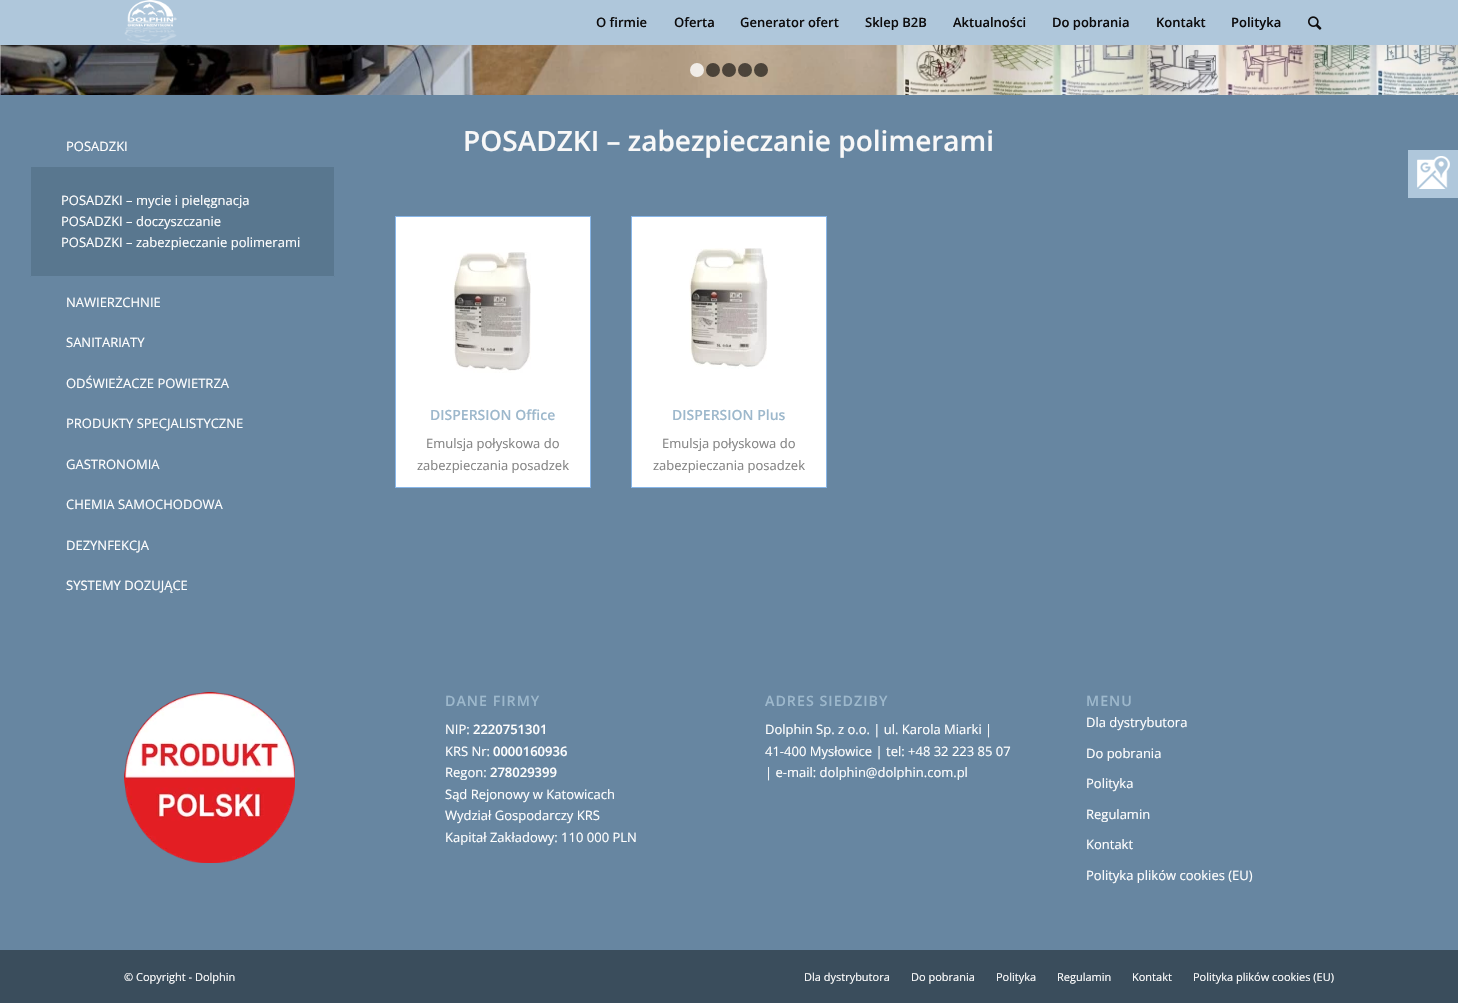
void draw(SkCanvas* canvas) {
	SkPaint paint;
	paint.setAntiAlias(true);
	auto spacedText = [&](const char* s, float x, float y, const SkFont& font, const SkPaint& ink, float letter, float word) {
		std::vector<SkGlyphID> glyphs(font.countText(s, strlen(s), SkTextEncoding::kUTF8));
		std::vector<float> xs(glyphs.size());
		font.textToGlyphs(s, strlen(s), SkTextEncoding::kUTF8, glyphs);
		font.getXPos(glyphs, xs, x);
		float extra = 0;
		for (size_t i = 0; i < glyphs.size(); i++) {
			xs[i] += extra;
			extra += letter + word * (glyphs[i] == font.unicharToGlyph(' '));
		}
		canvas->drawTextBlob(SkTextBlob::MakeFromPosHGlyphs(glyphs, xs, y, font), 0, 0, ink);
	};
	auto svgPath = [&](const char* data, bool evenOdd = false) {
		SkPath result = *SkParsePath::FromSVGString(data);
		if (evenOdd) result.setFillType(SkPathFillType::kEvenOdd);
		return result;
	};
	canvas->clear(0xff6786a1);
	paint.setColor(0xffafc7db);
	canvas->drawRect(SkRect::MakeXYWH(0, 0, 1458, 45), paint);
	canvas->drawImageRect(SkImages::DeferredFromEncodedData(SkData::MakeFromFileName("img1.png")), SkRect::MakeXYWH(124, 0, 53, 45), SkSamplingOptions());
	SkFont f1(fontMgr->matchFamilyStyle("Open Sans", SkFontStyle(600, SkFontStyle::kNormal_Width, SkFontStyle::kUpright_Slant)), 13);
	f1.setSubpixel(true);
	paint.setColor(0xff0d0c0d);
	canvas->drawString("O firmie", 596, 27, f1, paint);
	canvas->drawString("Oferta", 674, 27, f1, paint);
	canvas->drawString("Generator ofert", 740, 27, f1, paint);
	canvas->drawString("Sklep B2B", 865, 27, f1, paint);
	canvas->drawString("Aktualności", 953, 27, f1, paint);
	canvas->drawString("Do pobrania", 1052, 27, f1, paint);
	canvas->drawString("Kontakt", 1156, 27, f1, paint);
	canvas->drawString("Polityka", 1231, 27, f1, paint);
	canvas->drawImageRect(SkImages::DeferredFromEncodedData(SkData::MakeFromFileName("img2.png")), SkRect::MakeXYWH(1308, 16, 14, 14), SkSamplingOptions());
	canvas->drawImageRect(SkImages::DeferredFromEncodedData(SkData::MakeFromFileName("img3.png")), SkRect::MakeXYWH(0, 45, 1458, 50), SkSamplingOptions());
	paint.setColor(0xccffffff);
	canvas->drawCircle(697, 70, 7, paint);
	paint.setColor(0x99000000);
	canvas->drawCircle(713, 70, 7, paint);
	canvas->drawCircle(729, 70, 7, paint);
	canvas->drawCircle(745, 70, 7, paint);
	canvas->drawCircle(761, 70, 7, paint);
	paint.setColor(0xff59778f);
	canvas->drawPath(svgPath("M30 166H335V275C335 276 334 277 333 277H32C31 277 30 276 30 275Z"), paint);
	paint.setColor(0xff6786a1);
	canvas->drawRect(SkRect::MakeXYWH(334, 166, 1, 110), paint);
	canvas->drawRect(SkRect::MakeXYWH(30, 166, 1, 110), paint);
	canvas->drawPath(svgPath("M32 126H333C334 126 335 127 335 128V167H30V128C30 127 31 126 32 126Z"), paint);
	SkFont f2(fontMgr->matchFamilyStyle("Open Sans", SkFontStyle::Normal()), 13);
	f2.setSubpixel(true);
	paint.setColor(0xffffffff);
	canvas->drawString("POSADZKI", 66, 151, f2, paint);
	paint.setColor(0xff6786a1);
	canvas->drawRect(SkRect::MakeXYWH(31, 276, 303, 1), paint);
	paint.setColor(0xffffffff);
	canvas->drawString("POSADZKI – mycie i pielęgnacja", 61, 205, f2, paint);
	canvas->drawString("POSADZKI – doczyszczanie", 61, 226, f2, paint);
	canvas->drawString("POSADZKI – zabezpieczanie polimerami", 61, 247, f2, paint);
	canvas->drawString("NAWIERZCHNIE", 66, 307, f2, paint);
	canvas->drawString("SANITARIATY", 66, 347, f2, paint);
	canvas->drawString("ODŚWIEŻACZE POWIETRZA", 66, 388, f2, paint);
	canvas->drawString("PRODUKTY SPECJALISTYCZNE", 66, 428, f2, paint);
	canvas->drawString("GASTRONOMIA", 66, 469, f2, paint);
	canvas->drawString("CHEMIA SAMOCHODOWA", 66, 509, f2, paint);
	canvas->drawString("DEZYNFEKCJA", 66, 550, f2, paint);
	canvas->drawString("SYSTEMY DOZUJĄCE", 66, 590, f2, paint);
	SkFont f3(fontMgr->matchFamilyStyle("Open Sans", SkFontStyle(600, SkFontStyle::kNormal_Width, SkFontStyle::kUpright_Slant)), 28);
	f3.setSubpixel(true);
	paint.setColor(0xfff8f8f8);
	canvas->drawString("POSADZKI – zabezpieczanie polimerami", 463, 151, f3, paint);
	paint.setColor(0xffffffff);
	canvas->drawRect(SkRect::MakeXYWH(395.5, 216.5, 195, 271), paint);
	paint.setStroke(true);
	paint.setStrokeWidth(1);
	paint.setColor(0xff88b6e8);
	canvas->drawRect(SkRect::MakeXYWH(395.5, 216.5, 195, 271), paint);
	canvas->drawImageRect(SkImages::DeferredFromEncodedData(SkData::MakeFromFileName("img4.png")), SkRect::MakeXYWH(453, 252, 78, 121), SkSamplingOptions());
	SkFont f4(fontMgr->matchFamilyStyle("Open Sans", SkFontStyle(600, SkFontStyle::kNormal_Width, SkFontStyle::kUpright_Slant)), 14);
	f4.setSubpixel(true);
	paint.setStroke(false);
	paint.setColor(0xff9db8cc);
	canvas->drawString("DISPERSION Office", 430, 420, f4, paint);
	paint.setColor(0xff848484);
	canvas->drawString("Emulsja połyskowa do", 426, 448, f2, paint);
	canvas->drawString("zabezpieczania posadzek", 417, 470, f2, paint);
	paint.setColor(0xffffffff);
	canvas->drawRect(SkRect::MakeXYWH(631.5, 216.5, 195, 271), paint);
	paint.setStroke(true);
	paint.setColor(0xff88b6e8);
	canvas->drawRect(SkRect::MakeXYWH(631.5, 216.5, 195, 271), paint);
	canvas->drawImageRect(SkImages::DeferredFromEncodedData(SkData::MakeFromFileName("img5.png")), SkRect::MakeXYWH(689, 248, 79, 121), SkSamplingOptions());
	paint.setStroke(false);
	paint.setColor(0xff9db8cc);
	canvas->drawString("DISPERSION Plus", 672, 420, f4, paint);
	paint.setColor(0xff848484);
	canvas->drawString("Emulsja połyskowa do", 662, 448, f2, paint);
	canvas->drawString("zabezpieczania posadzek", 653, 470, f2, paint);
	canvas->drawImageRect(SkImages::DeferredFromEncodedData(SkData::MakeFromFileName("img6.png")), SkRect::MakeXYWH(124, 692, 171, 171), SkSamplingOptions());
	SkFont f5(fontMgr->matchFamilyStyle("Open Sans", SkFontStyle(600, SkFontStyle::kNormal_Width, SkFontStyle::kUpright_Slant)), 14.25);
	f5.setSubpixel(true);
	paint.setColor(0xff9db8cc);
	spacedText("DANE FIRMY", 445, 706, f5, paint, 1, 0);
	paint.setColor(0xffffffff);
	canvas->drawString("NIP:", 445, 734, f2, paint);
	canvas->drawString("2220751301", 473, 734, f1, paint);
	canvas->drawString("KRS Nr:", 445, 756, f2, paint);
	canvas->drawString("0000160936", 493, 756, f1, paint);
	canvas->drawString("Regon:", 445, 777, f2, paint);
	canvas->drawString("278029399", 490, 777, f1, paint);
	canvas->drawString("Sąd Rejonowy w Katowicach", 445, 799, f2, paint);
	canvas->drawString("Wydział Gospodarczy KRS", 445, 820, f2, paint);
	canvas->drawString("Kapitał Zakładowy: 110 000 PLN", 445, 842, f2, paint);
	paint.setColor(0xff9db8cc);
	spacedText("ADRES SIEDZIBY", 765, 706, f5, paint, 1, 0);
	paint.setColor(0xffffffff);
	canvas->drawString("Dolphin Sp. z o.o. | ul. Karola Miarki |", 765, 734, f2, paint);
	canvas->drawString("41-400 Mysłowice | tel: +48 32 223 85 07", 765, 756, f2, paint);
	canvas->drawString("| e-mail: dolphin@dolphin.com.pl", 765, 777, f2, paint);
	paint.setColor(0xff9db8cc);
	spacedText("MENU", 1086, 706, f5, paint, 1, 0);
	paint.setColor(0xffffffff);
	canvas->drawString("Dla dystrybutora", 1086, 727, f2, paint);
	canvas->drawString("Do pobrania", 1086, 758, f2, paint);
	canvas->drawString("Polityka", 1086, 788, f2, paint);
	canvas->drawString("Regulamin", 1086, 819, f2, paint);
	canvas->drawString("Kontakt", 1086, 849, f2, paint);
	canvas->drawString("Polityka plików cookies (EU)", 1086, 880, f2, paint);
	paint.setColor(0xff3a4d5c);
	canvas->drawRect(SkRect::MakeXYWH(0, 950, 1458, 53), paint);
	SkFont f6(fontMgr->matchFamilyStyle("Open Sans", SkFontStyle::Normal()), 11);
	f6.setSubpixel(true);
	paint.setColor(0xffffffff);
	canvas->drawString("© Copyright - Dolphin", 124, 981, f6, paint);
	canvas->drawString("Dla dystrybutora", 804, 981, f6, paint);
	canvas->drawString("Do pobrania", 911, 981, f6, paint);
	canvas->drawString("Polityka", 996, 981, f6, paint);
	canvas->drawString("Regulamin", 1057, 981, f6, paint);
	canvas->drawString("Kontakt", 1132, 981, f6, paint);
	canvas->drawString("Polityka plików cookies (EU)", 1193, 981, f6, paint);
	paint.setColor(0xffafc7db);
	canvas->drawRect(SkRect::MakeXYWH(1408, 150, 50, 48), paint);
	canvas->drawImageRect(SkImages::DeferredFromEncodedData(SkData::MakeFromFileName("img7.png")), SkRect::MakeXYWH(1417, 156, 33, 33), SkSamplingOptions());
}
